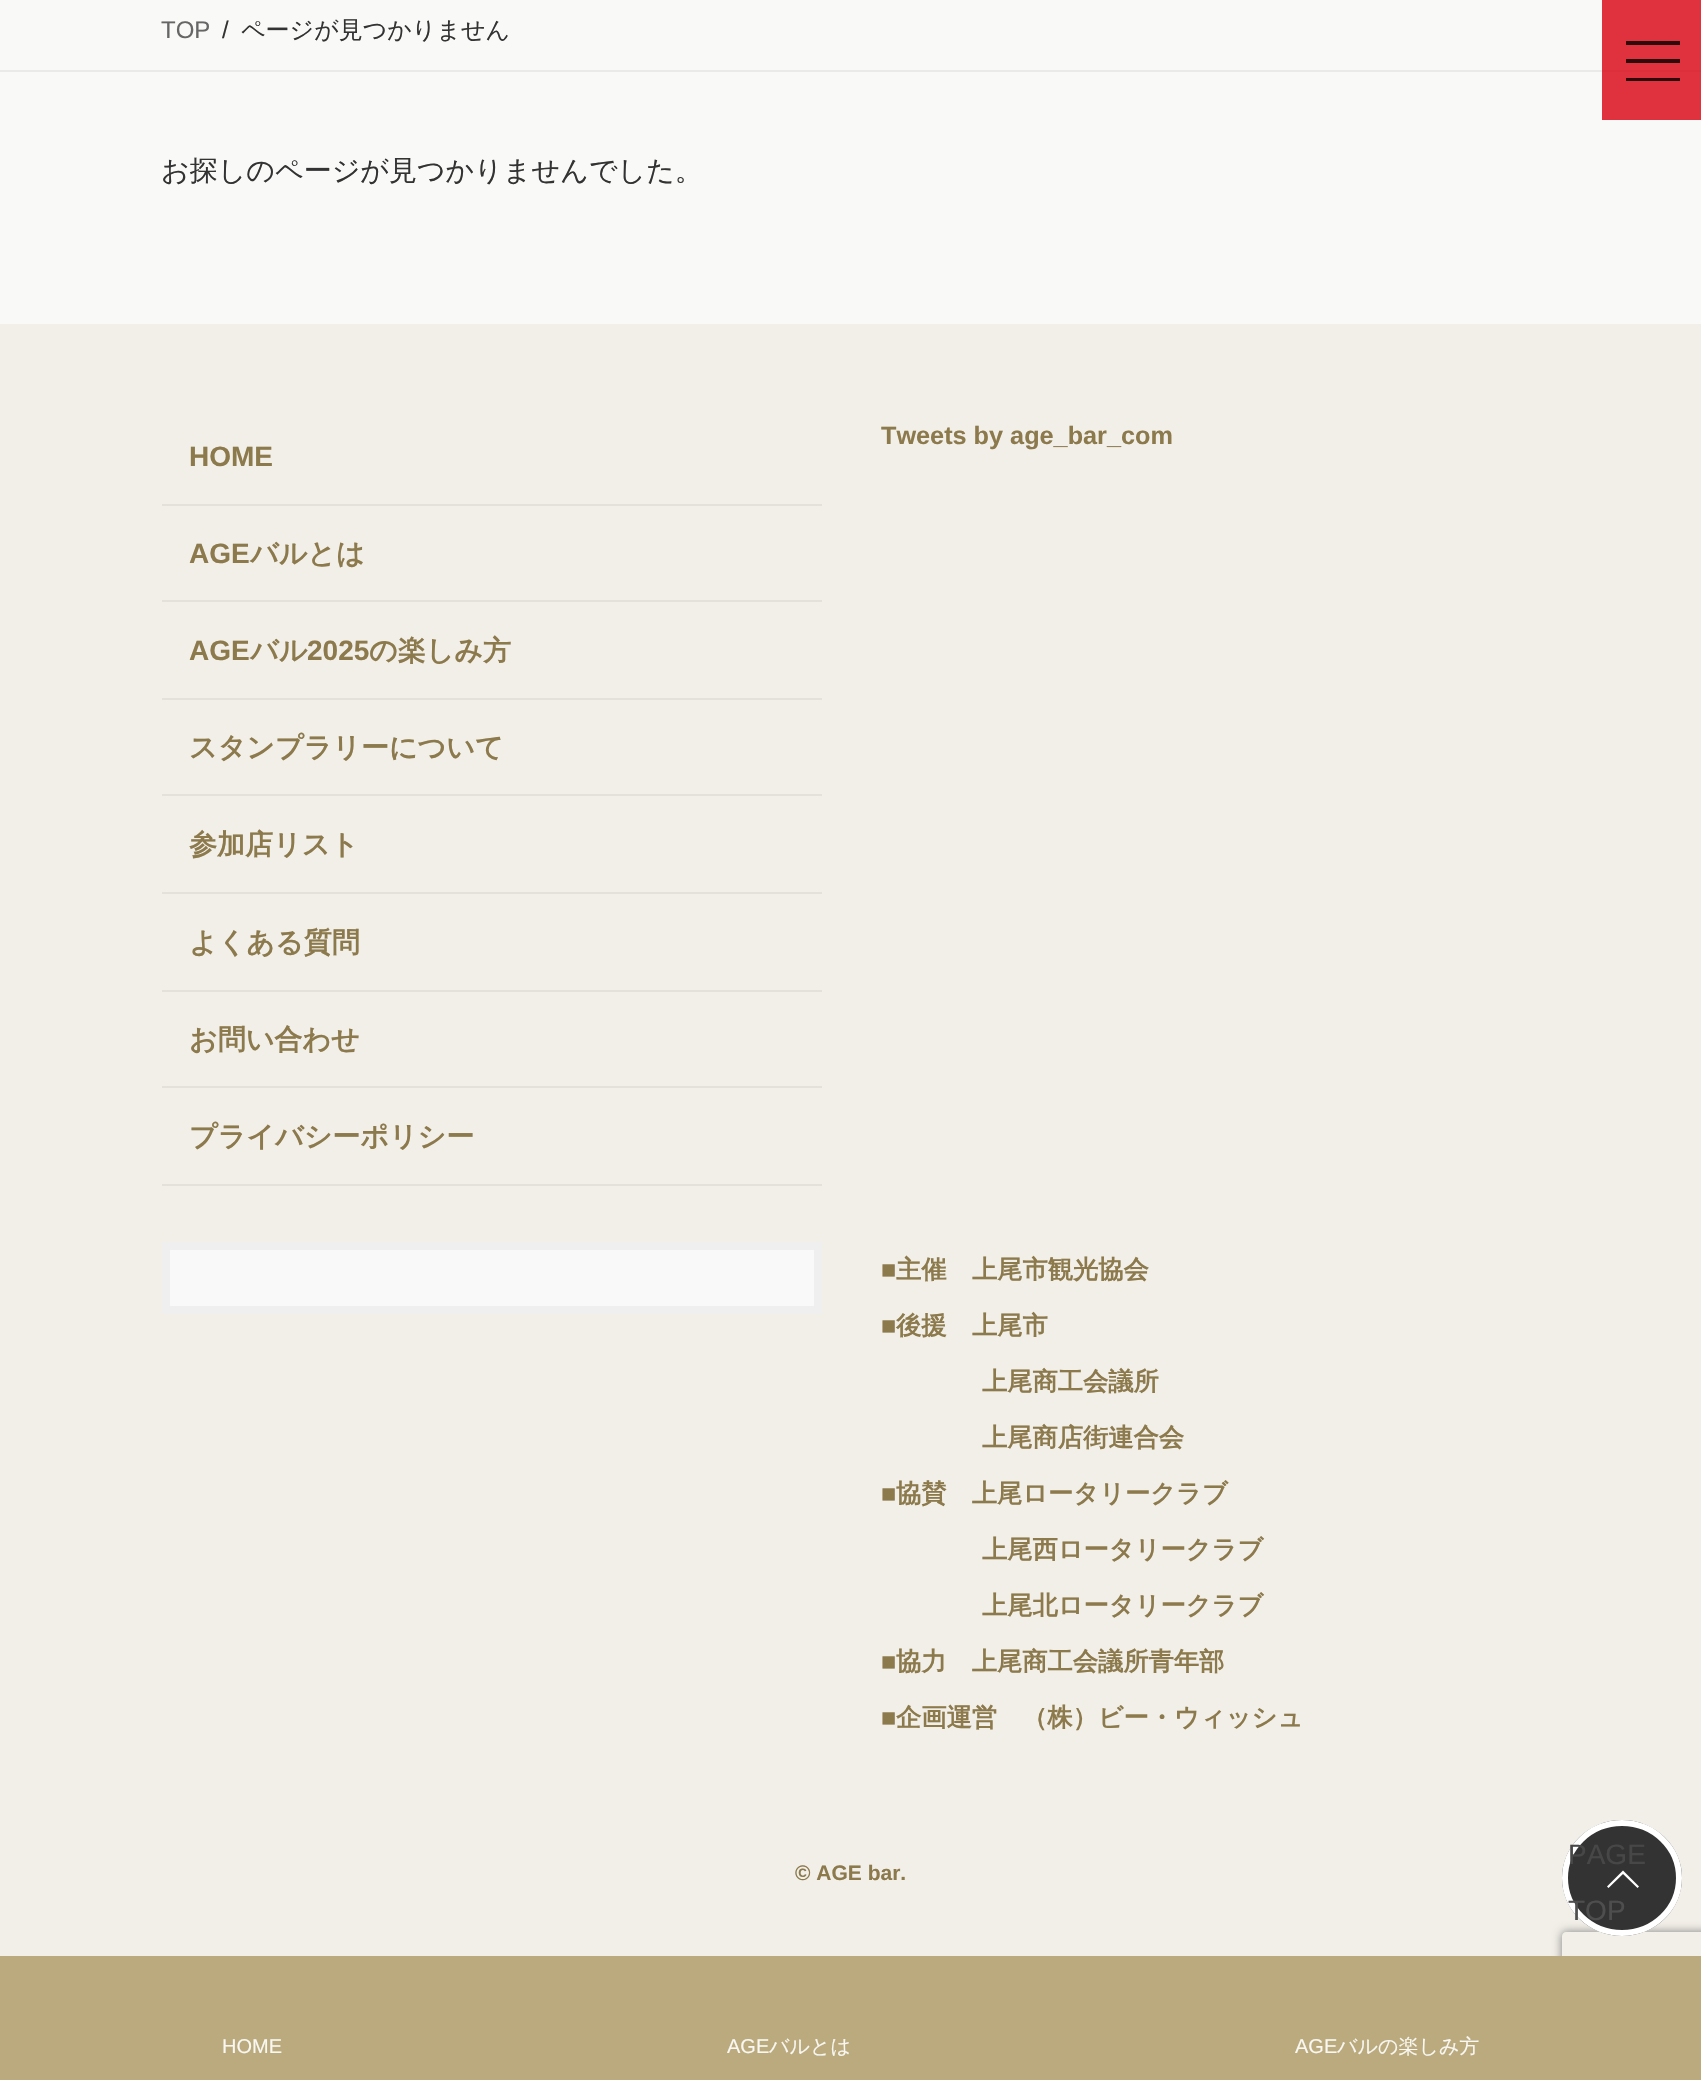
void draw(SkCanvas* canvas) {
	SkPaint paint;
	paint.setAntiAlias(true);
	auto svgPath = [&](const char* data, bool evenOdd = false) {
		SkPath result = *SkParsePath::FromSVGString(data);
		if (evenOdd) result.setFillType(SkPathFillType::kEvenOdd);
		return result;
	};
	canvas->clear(0xfff9f9f7);
	paint.setColor(0xffe0323e);
	canvas->drawRect(SkRect::MakeXYWH(1602, 0, 99, 120), paint);
	paint.setColor(0xffeaeae8);
	canvas->drawRect(SkRect::MakeXYWH(0, 70, 1602, 2), paint);
	paint.setColor(0xffdd2f3b);
	canvas->drawRect(SkRect::MakeXYWH(1602, 70, 99, 2), paint);
	SkFont f1(fontMgr->matchFamilyStyle("Liberation Sans", SkFontStyle::Normal()), 24);
	f1.setSubpixel(true);
	paint.setColor(0xff666666);
	canvas->drawString("TOP", 161, 38, f1, paint);
	paint.setColor(0xff333333);
	canvas->drawString("/", 222, 38, f1, paint);
	SkFont f2(fontMgr->matchFamilyStyle("WenQuanYi Zen Hei", SkFontStyle(500, SkFontStyle::kNormal_Width, SkFontStyle::kUpright_Slant)), 24);
	f2.setSubpixel(true);
	canvas->drawString("ページが見つかりません", 241, 38, f2, paint);
	paint.setColor(0xff2d0a0c);
	canvas->drawRect(SkRect::MakeXYWH(1626, 41, 54, 4), paint);
	canvas->drawRect(SkRect::MakeXYWH(1626, 59, 54, 4), paint);
	canvas->drawRect(SkRect::MakeXYWH(1626, 78, 54, 3), paint);
	SkFont f3(fontMgr->matchFamilyStyle("WenQuanYi Zen Hei", SkFontStyle(500, SkFontStyle::kNormal_Width, SkFontStyle::kUpright_Slant)), 28);
	f3.setSubpixel(true);
	paint.setColor(0xff333333);
	canvas->drawString("お探しのページが見つかりませんでした。", 161, 180, f3, paint);
	paint.setColor(0xfff2efe8);
	canvas->drawRect(SkRect::MakeXYWH(0, 324, 1701, 1632), paint);
	SkFont f4(fontMgr->matchFamilyStyle("Liberation Sans", SkFontStyle::Bold()), 25.25);
	f4.setSubpixel(true);
	paint.setColor(0xff8c7a4d);
	canvas->drawString("Tweets by age_bar_com", 881, 444, f4, paint);
	paint.setColor(0xffe3e1da);
	canvas->drawRect(SkRect::MakeXYWH(162, 504, 660, 2), paint);
	SkFont f5(fontMgr->matchFamilyStyle("Liberation Sans", SkFontStyle::Bold()), 28);
	f5.setSubpixel(true);
	paint.setColor(0xff8c7a4d);
	canvas->drawString("HOME", 189, 466, f5, paint);
	paint.setColor(0xffe3e1da);
	canvas->drawRect(SkRect::MakeXYWH(162, 600, 660, 2), paint);
	paint.setColor(0xff8c7a4d);
	canvas->drawString("AGE", 189, 563, f5, paint);
	SkFont f6(fontMgr->matchFamilyStyle("WenQuanYi Zen Hei", SkFontStyle::Bold()), 28);
	f6.setSubpixel(true);
	canvas->drawString("バルとは", 250, 563, f6, paint);
	paint.setColor(0xffe3e1da);
	canvas->drawRect(SkRect::MakeXYWH(162, 698, 660, 2), paint);
	paint.setColor(0xff8c7a4d);
	canvas->drawString("AGE", 189, 660, f5, paint);
	canvas->drawString("バル", 250, 660, f6, paint);
	canvas->drawString("2025", 307, 660, f5, paint);
	canvas->drawString("の楽しみ方", 369, 660, f6, paint);
	paint.setColor(0xffe3e1da);
	canvas->drawRect(SkRect::MakeXYWH(162, 794, 660, 2), paint);
	paint.setColor(0xff8c7a4d);
	canvas->drawString("スタンプラリーについて", 189, 757, f6, paint);
	paint.setColor(0xffe3e1da);
	canvas->drawRect(SkRect::MakeXYWH(162, 892, 660, 2), paint);
	paint.setColor(0xff8c7a4d);
	canvas->drawString("参加店リスト", 189, 854, f6, paint);
	paint.setColor(0xffe3e1da);
	canvas->drawRect(SkRect::MakeXYWH(162, 990, 660, 2), paint);
	paint.setColor(0xff8c7a4d);
	canvas->drawString("よくある質問", 189, 952, f6, paint);
	paint.setColor(0xffe3e1da);
	canvas->drawRect(SkRect::MakeXYWH(162, 1086, 660, 2), paint);
	paint.setColor(0xff8c7a4d);
	canvas->drawString("お問い合わせ", 189, 1049, f6, paint);
	paint.setColor(0xffe3e1da);
	canvas->drawRect(SkRect::MakeXYWH(162, 1184, 660, 2), paint);
	paint.setColor(0xff8c7a4d);
	canvas->drawString("プライバシーポリシー", 189, 1146, f6, paint);
	paint.setColor(0xfff9f9f9);
	canvas->drawRect(SkRect::MakeXYWH(166, 1246, 652, 64), paint);
	paint.setStroke(true);
	paint.setStrokeWidth(8);
	paint.setColor(0xffefefef);
	canvas->drawRect(SkRect::MakeXYWH(166, 1246, 652, 64), paint);
	paint.setStroke(false);
	paint.setColor(0xff8c7a4d);
	canvas->drawString("■", 881, 1278, f4, paint);
	SkFont f7(fontMgr->matchFamilyStyle("WenQuanYi Zen Hei", SkFontStyle::Bold()), 25.25);
	f7.setSubpixel(true);
	canvas->drawString("主催", 896, 1278, f7, paint);
	canvas->drawString("上尾市観光協会", 972, 1278, f7, paint);
	canvas->drawString("■", 881, 1334, f4, paint);
	canvas->drawString("後援", 896, 1334, f7, paint);
	canvas->drawString("上尾市", 972, 1334, f7, paint);
	canvas->drawString("上尾商工会議所", 982, 1390, f7, paint);
	canvas->drawString("上尾商店街連合会", 982, 1446, f7, paint);
	canvas->drawString("■", 881, 1502, f4, paint);
	canvas->drawString("協賛　上尾ロータリークラブ", 896, 1502, f7, paint);
	canvas->drawString("上尾西ロータリークラブ", 982, 1558, f7, paint);
	canvas->drawString("上尾北ロータリークラブ", 982, 1614, f7, paint);
	canvas->drawString("■", 881, 1670, f4, paint);
	canvas->drawString("協力　上尾商工会議所青年部", 896, 1670, f7, paint);
	canvas->drawString("■", 881, 1726, f4, paint);
	canvas->drawString("企画運営", 896, 1726, f7, paint);
	canvas->drawString("（株）ビー・ウィッシュ", 1022, 1726, f7, paint);
	SkFont f8(fontMgr->matchFamilyStyle("Liberation Sans", SkFontStyle::Bold()), 21);
	f8.setSubpixel(true);
	canvas->drawString("© AGE bar.", 795, 1880, f8, paint);
	canvas->save();
	canvas->clipPath(svgPath("M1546 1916H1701V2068H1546ZM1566 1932H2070C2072 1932 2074 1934 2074 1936V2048C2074 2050 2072 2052 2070 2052H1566C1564 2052 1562 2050 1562 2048V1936C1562 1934 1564 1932 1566 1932Z", true), true);
	paint.setColor(0xff808080);
	paint.setMaskFilter(SkMaskFilter::MakeBlur(kNormal_SkBlurStyle, 5));
	canvas->drawRoundRect(SkRect::MakeXYWH(1562, 1932, 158, 120), 4, 4, paint);
	paint.setMaskFilter(nullptr);
	canvas->restore();
	paint.setColor(0xff333333);
	canvas->drawOval(SkRect::MakeXYWH(1562, 1820, 120, 116), paint);
	paint.setColor(0xffffffff);
	canvas->drawPath(svgPath("M1639 1886.5L1637.5 1888L1623 1874L1608.5 1888L1607 1886.5L1623 1870.5Z"), paint);
	paint.setStroke(true);
	paint.setStrokeWidth(6);
	canvas->drawPath(svgPath("M1622 1823C1653.5 1823 1679 1847.5 1679 1878C1679 1908.5 1653.5 1933 1622 1933C1590.5 1933 1565 1908.5 1565 1878C1565 1847.5 1590.5 1823 1622 1823Z"), paint);
	SkFont f9(fontMgr->matchFamilyStyle("Liberation Sans", SkFontStyle::Normal()), 28);
	f9.setSubpixel(true);
	paint.setStroke(false);
	paint.setColor(0xff474747);
	canvas->drawString("PAGE", 1568, 1864, f9, paint);
	paint.setColor(0xff4e4e4e);
	canvas->drawString("TOP", 1568, 1920, f9, paint);
	paint.setColor(0xffbaaa7d);
	canvas->drawRect(SkRect::MakeXYWH(0, 1956, 1701, 124), paint);
	SkFont f10(fontMgr->matchFamilyStyle("Liberation Sans", SkFontStyle::Normal()), 20);
	f10.setSubpixel(true);
	paint.setColor(0xfff8f7f2);
	canvas->drawString("HOME", 222, 2053, f10, paint);
	canvas->drawString("AGE", 727, 2053, f10, paint);
	SkFont f11(fontMgr->matchFamilyStyle("WenQuanYi Zen Hei", SkFontStyle(500, SkFontStyle::kNormal_Width, SkFontStyle::kUpright_Slant)), 20);
	f11.setSubpixel(true);
	canvas->drawString("バルとは", 769, 2053, f11, paint);
	canvas->drawString("AGE", 1295, 2053, f10, paint);
	canvas->drawString("バルの楽しみ方", 1337, 2053, f11, paint);
}
